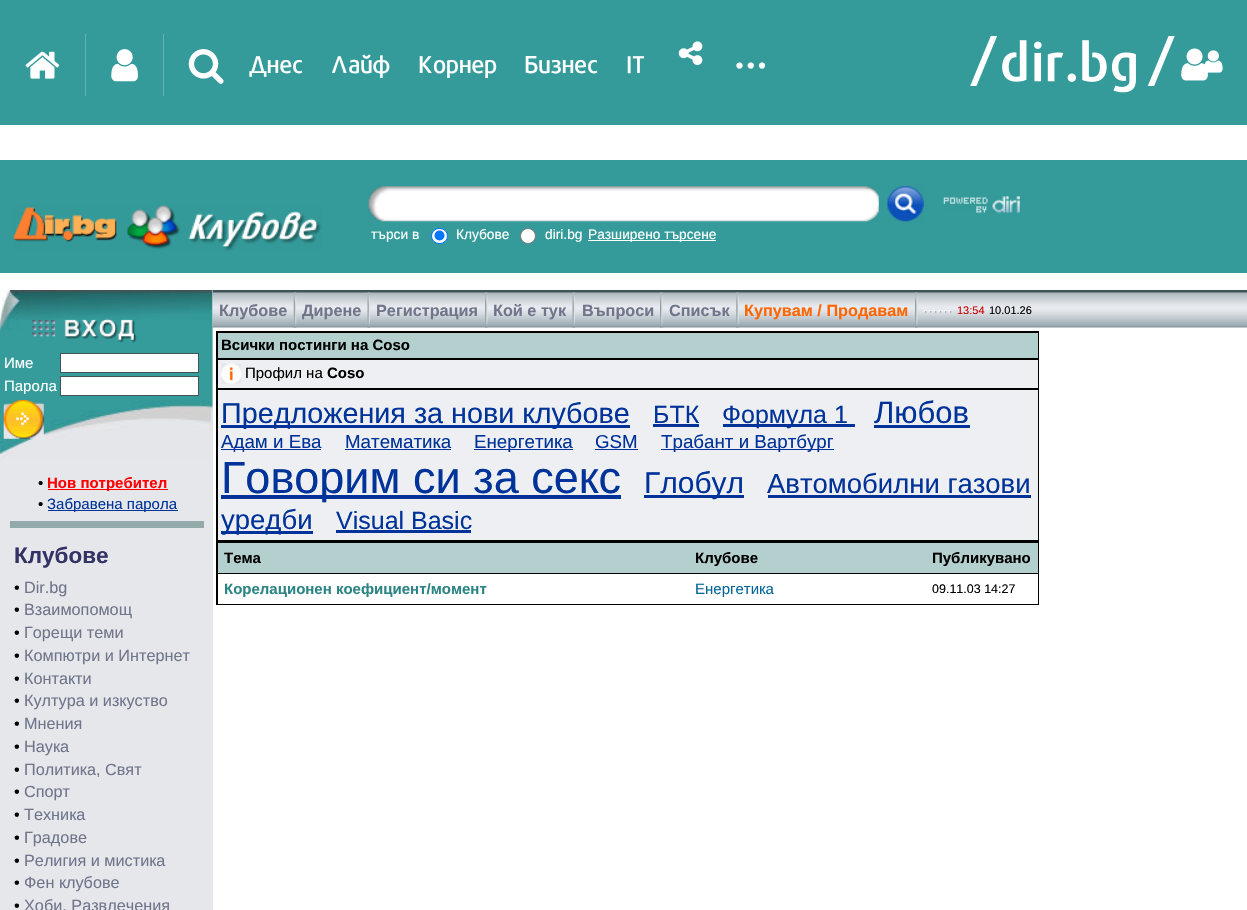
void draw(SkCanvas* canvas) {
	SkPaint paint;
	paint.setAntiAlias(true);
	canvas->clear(0xffffffff);
	paint.setColor(0xff349b9a);
	canvas->drawRect(SkRect::MakeXYWH(0, 0, 1247, 125), paint);
	canvas->drawImageRect(SkImages::DeferredFromEncodedData(SkData::MakeFromFileName("img1.png")), SkRect::MakeXYWH(25, 51, 35, 28), SkSamplingOptions());
	paint.setColor(0xff68b0b0);
	canvas->drawRect(SkRect::MakeXYWH(85, 34, 1, 62), paint);
	canvas->drawImageRect(SkImages::DeferredFromEncodedData(SkData::MakeFromFileName("img2.png")), SkRect::MakeXYWH(111, 49, 27, 33), SkSamplingOptions());
	canvas->drawRect(SkRect::MakeXYWH(163, 34, 1, 62), paint);
	canvas->drawImageRect(SkImages::DeferredFromEncodedData(SkData::MakeFromFileName("img3.png")), SkRect::MakeXYWH(188, 49, 36, 35), SkSamplingOptions());
	SkFont f1(fontMgr->matchFamilyStyle("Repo", SkFontStyle(500, SkFontStyle::kNormal_Width, SkFontStyle::kUpright_Slant)), 24);
	f1.setSubpixel(true);
	paint.setColor(0xffffffff);
	canvas->drawString("Днес", 249, 73, f1, paint);
	canvas->drawString("Лайф", 332, 73, f1, paint);
	canvas->drawString("Корнер", 418, 73, f1, paint);
	canvas->drawString("Бизнес", 525, 73, f1, paint);
	canvas->drawString("IT", 626, 73, f1, paint);
	canvas->drawImageRect(SkImages::DeferredFromEncodedData(SkData::MakeFromFileName("img4.png")), SkRect::MakeXYWH(678, 41, 25, 24), SkSamplingOptions());
	SkFont f2(fontMgr->matchFamilyStyle("Repo", SkFontStyle(500, SkFontStyle::kNormal_Width, SkFontStyle::kUpright_Slant)), 44);
	f2.setSubpixel(true);
	canvas->drawString("...", 734, 68, f2, paint);
	canvas->drawImageRect(SkImages::DeferredFromEncodedData(SkData::MakeFromFileName("img5.png")), SkRect::MakeXYWH(970, 36, 205, 57), SkSamplingOptions());
	canvas->drawImageRect(SkImages::DeferredFromEncodedData(SkData::MakeFromFileName("img6.png")), SkRect::MakeXYWH(1181, 48, 42, 33), SkSamplingOptions());
	paint.setColor(0xff349b9a);
	canvas->drawRect(SkRect::MakeXYWH(0, 160, 1247, 113), paint);
	canvas->drawImageRect(SkImages::DeferredFromEncodedData(SkData::MakeFromFileName("img7.png")), SkRect::MakeXYWH(13, 205, 309, 46), SkSamplingOptions());
	canvas->drawImageRect(SkImages::DeferredFromEncodedData(SkData::MakeFromFileName("img8.png")), SkRect::MakeXYWH(368, 186, 511, 36), SkSamplingOptions());
	paint.setColor(0xffffffff);
	canvas->drawRect(SkRect::MakeXYWH(381, 194, 1, 1), paint);
	canvas->drawImageRect(SkImages::DeferredFromEncodedData(SkData::MakeFromFileName("img9.png")), SkRect::MakeXYWH(887, 186, 37, 36), SkSamplingOptions());
	canvas->drawImageRect(SkImages::DeferredFromEncodedData(SkData::MakeFromFileName("img10.png")), SkRect::MakeXYWH(943, 196, 77, 17), SkSamplingOptions());
	SkFont f3(fontMgr->matchFamilyStyle("Liberation Sans", SkFontStyle::Normal()), 13.75);
	f3.setSubpixel(true);
	canvas->drawString("търси в", 371, 239, f3, paint);
	canvas->drawRoundRect(SkRect::MakeXYWH(431.5, 228.5, 16, 15), 7.5, 7.5, paint);
	paint.setStroke(true);
	paint.setStrokeWidth(1);
	paint.setColor(0xff0075ff);
	canvas->drawRoundRect(SkRect::MakeXYWH(431.5, 228.5, 16, 15), 7.5, 7.5, paint);
	paint.setStroke(false);
	canvas->drawCircle(439.5, 235.5, 5, paint);
	paint.setColor(0xffffffff);
	canvas->drawString("Клубове", 456, 239, f3, paint);
	canvas->drawCircle(528, 236, 7.5, paint);
	paint.setStroke(true);
	paint.setColor(0xff767676);
	canvas->drawCircle(528, 236, 7.5, paint);
	paint.setStroke(false);
	paint.setColor(0xffffffff);
	canvas->drawString("diri.bg", 545, 239, f3, paint);
	canvas->drawRect(SkRect::MakeXYWH(588, 240, 128, 1), paint);
	canvas->drawString("Разширено търсене", 588, 239, f3, paint);
	paint.setColor(0xffe6e7eb);
	canvas->drawRect(SkRect::MakeXYWH(0, 290, 213, 620), paint);
	canvas->drawImageRect(SkImages::DeferredFromEncodedData(SkData::MakeFromFileName("img11.png")), SkRect::MakeXYWH(0, 290, 213, 170), SkSamplingOptions());
	canvas->drawImageRect(SkImages::DeferredFromEncodedData(SkData::MakeFromFileName("img12.png")), SkRect::MakeXYWH(32, 318, 105, 25), SkSamplingOptions());
	SkFont f4(fontMgr->matchFamilyStyle("Liberation Sans", SkFontStyle::Normal()), 15);
	f4.setSubpixel(true);
	paint.setColor(0xffffffff);
	canvas->drawString("Име", 4, 368, f4, paint);
	canvas->drawRect(SkRect::MakeXYWH(60.5, 353.5, 138, 19), paint);
	paint.setStroke(true);
	paint.setColor(0xff415558);
	canvas->drawRect(SkRect::MakeXYWH(60.5, 353.5, 138, 19), paint);
	paint.setStroke(false);
	paint.setColor(0xffffffff);
	canvas->drawString("Парола", 4, 391, f4, paint);
	canvas->drawRect(SkRect::MakeXYWH(60.5, 376.5, 138, 19), paint);
	paint.setStroke(true);
	paint.setColor(0xff415558);
	canvas->drawRect(SkRect::MakeXYWH(60.5, 376.5, 138, 19), paint);
	canvas->drawImageRect(SkImages::DeferredFromEncodedData(SkData::MakeFromFileName("img13.png")), SkRect::MakeXYWH(3, 400, 41, 39), SkSamplingOptions());
	paint.setStroke(false);
	paint.setColor(0xff000000);
	canvas->drawString("•", 38, 488, f4, paint);
	paint.setColor(0xffff0000);
	canvas->drawRect(SkRect::MakeXYWH(48, 489, 120, 1), paint);
	SkFont f5(fontMgr->matchFamilyStyle("Liberation Sans", SkFontStyle::Bold()), 15);
	f5.setSubpixel(true);
	canvas->drawString("Нов потребител", 47, 488, f5, paint);
	paint.setColor(0xff000000);
	canvas->drawString("•", 38, 509, f4, paint);
	paint.setColor(0xff003399);
	canvas->drawRect(SkRect::MakeXYWH(48, 510, 130, 1), paint);
	canvas->drawString("Забравена парола", 47, 509, f4, paint);
	paint.setColor(0xff93aaaa);
	canvas->drawRect(SkRect::MakeXYWH(10, 521, 194, 7), paint);
	SkFont f6(fontMgr->matchFamilyStyle("Liberation Sans", SkFontStyle::Bold()), 22.5);
	f6.setSubpixel(true);
	paint.setColor(0xff333366);
	canvas->drawString("Клубове", 14, 563, f6, paint);
	SkFont f7(fontMgr->matchFamilyStyle("Liberation Sans", SkFontStyle::Normal()), 16.25);
	f7.setSubpixel(true);
	paint.setColor(0xff000000);
	canvas->drawString("•", 14, 593, f7, paint);
	paint.setColor(0xff70758b);
	canvas->drawString("Dir.bg", 24, 593, f7, paint);
	paint.setColor(0xff000000);
	canvas->drawString("•", 14, 615, f7, paint);
	paint.setColor(0xff70758b);
	canvas->drawString("Взаимопомощ", 24, 615, f7, paint);
	paint.setColor(0xff000000);
	canvas->drawString("•", 14, 638, f7, paint);
	paint.setColor(0xff70758b);
	canvas->drawString("Горещи теми", 24, 638, f7, paint);
	paint.setColor(0xff000000);
	canvas->drawString("•", 14, 661, f7, paint);
	paint.setColor(0xff70758b);
	canvas->drawString("Компютри и Интернет", 24, 661, f7, paint);
	paint.setColor(0xff000000);
	canvas->drawString("•", 14, 684, f7, paint);
	paint.setColor(0xff70758b);
	canvas->drawString("Контакти", 24, 684, f7, paint);
	paint.setColor(0xff000000);
	canvas->drawString("•", 14, 706, f7, paint);
	paint.setColor(0xff70758b);
	canvas->drawString("Култура и изкуство", 24, 706, f7, paint);
	paint.setColor(0xff000000);
	canvas->drawString("•", 14, 729, f7, paint);
	paint.setColor(0xff70758b);
	canvas->drawString("Мнения", 24, 729, f7, paint);
	paint.setColor(0xff000000);
	canvas->drawString("•", 14, 752, f7, paint);
	paint.setColor(0xff70758b);
	canvas->drawString("Наука", 24, 752, f7, paint);
	paint.setColor(0xff000000);
	canvas->drawString("•", 14, 775, f7, paint);
	paint.setColor(0xff70758b);
	canvas->drawString("Политика, Свят", 24, 775, f7, paint);
	paint.setColor(0xff000000);
	canvas->drawString("•", 14, 797, f7, paint);
	paint.setColor(0xff70758b);
	canvas->drawString("Спорт", 24, 797, f7, paint);
	paint.setColor(0xff000000);
	canvas->drawString("•", 14, 820, f7, paint);
	paint.setColor(0xff70758b);
	canvas->drawString("Техника", 24, 820, f7, paint);
	paint.setColor(0xff000000);
	canvas->drawString("•", 14, 843, f7, paint);
	paint.setColor(0xff70758b);
	canvas->drawString("Градове", 24, 843, f7, paint);
	paint.setColor(0xff000000);
	canvas->drawString("•", 14, 866, f7, paint);
	paint.setColor(0xff70758b);
	canvas->drawString("Религия и мистика", 24, 866, f7, paint);
	paint.setColor(0xff000000);
	canvas->drawString("•", 14, 888, f7, paint);
	paint.setColor(0xff70758b);
	canvas->drawString("Фен клубове", 24, 888, f7, paint);
	paint.setColor(0xff000000);
	canvas->drawString("•", 14, 911, f7, paint);
	paint.setColor(0xff70758b);
	canvas->drawString("Хоби, Развлечения", 24, 911, f7, paint);
	paint.setColor(0xff405457);
	canvas->drawRect(SkRect::MakeXYWH(213, 290, 1034, 3), paint);
	canvas->drawImageRect(SkImages::DeferredFromEncodedData(SkData::MakeFromFileName("img14.png")), SkRect::MakeXYWH(212, 292, 1035, 36), SkSamplingOptions());
	SkFont f8(fontMgr->matchFamilyStyle("Liberation Sans", SkFontStyle::Bold()), 16.25);
	f8.setSubpixel(true);
	paint.setColor(0xff70758b);
	canvas->drawString("Клубове", 219, 316, f8, paint);
	canvas->drawImageRect(SkImages::DeferredFromEncodedData(SkData::MakeFromFileName("img15.png")), SkRect::MakeXYWH(293, 292, 4, 36), SkSamplingOptions());
	canvas->drawString("Дирене", 302, 316, f8, paint);
	canvas->drawImageRect(SkImages::DeferredFromEncodedData(SkData::MakeFromFileName("img16.png")), SkRect::MakeXYWH(367, 292, 3, 36), SkSamplingOptions());
	canvas->drawString("Регистрация", 376, 316, f8, paint);
	canvas->drawImageRect(SkImages::DeferredFromEncodedData(SkData::MakeFromFileName("img17.png")), SkRect::MakeXYWH(485, 292, 3, 36), SkSamplingOptions());
	canvas->drawString("Кой е тук", 493, 316, f8, paint);
	canvas->drawImageRect(SkImages::DeferredFromEncodedData(SkData::MakeFromFileName("img16.png")), SkRect::MakeXYWH(572, 292, 3, 36), SkSamplingOptions());
	canvas->drawString("Въпроси", 582, 316, f8, paint);
	canvas->drawImageRect(SkImages::DeferredFromEncodedData(SkData::MakeFromFileName("img17.png")), SkRect::MakeXYWH(660, 292, 3, 36), SkSamplingOptions());
	canvas->drawString("Списък", 669, 316, f8, paint);
	canvas->drawImageRect(SkImages::DeferredFromEncodedData(SkData::MakeFromFileName("img18.png")), SkRect::MakeXYWH(736, 292, 3, 36), SkSamplingOptions());
	paint.setColor(0xffff6600);
	canvas->drawString("Купувам / Продавам", 744, 316, f8, paint);
	canvas->drawImageRect(SkImages::DeferredFromEncodedData(SkData::MakeFromFileName("img17.png")), SkRect::MakeXYWH(915, 292, 3, 36), SkSamplingOptions());
	canvas->drawImageRect(SkImages::DeferredFromEncodedData(SkData::MakeFromFileName("img19.png")), SkRect::MakeXYWH(923, 310, 29, 3), SkSamplingOptions());
	SkFont f9(fontMgr->matchFamilyStyle("Liberation Sans", SkFontStyle::Normal()), 11);
	f9.setSubpixel(true);
	paint.setColor(0xffcc0000);
	canvas->drawString("13:54", 957, 314, f9, paint);
	paint.setColor(0xff000000);
	canvas->drawString("10.01.26", 989, 314, f9, paint);
	canvas->drawRect(SkRect::MakeXYWH(216, 331, 823, 274), paint);
	paint.setColor(0xffb3d0cf);
	canvas->drawRect(SkRect::MakeXYWH(218, 333, 820, 25), paint);
	paint.setColor(0xff000000);
	canvas->drawString("Всички постинги на Coso", 221, 350, f5, paint);
	paint.setColor(0xffeeeff2);
	canvas->drawRect(SkRect::MakeXYWH(218, 360, 820, 28), paint);
	canvas->drawImageRect(SkImages::DeferredFromEncodedData(SkData::MakeFromFileName("img20.png")), SkRect::MakeXYWH(221, 363, 21, 21), SkSamplingOptions());
	paint.setColor(0xff000000);
	canvas->drawString("Профил на", 245, 378, f4, paint);
	canvas->drawString("Coso", 327, 378, f5, paint);
	paint.setColor(0xffeeeff2);
	canvas->drawRect(SkRect::MakeXYWH(218, 390, 820, 150), paint);
	paint.setColor(0xff003399);
	canvas->drawRect(SkRect::MakeXYWH(221, 425, 409, 3), paint);
	SkFont f10(fontMgr->matchFamilyStyle("Liberation Sans", SkFontStyle::Normal()), 28.75);
	f10.setSubpixel(true);
	canvas->drawString("Предложения за нови клубове", 221, 423, f10, paint);
	SkFont f11(fontMgr->matchFamilyStyle("Liberation Sans", SkFontStyle::Normal()), 25);
	f11.setSubpixel(true);
	canvas->drawString("БТК", 653, 423, f11, paint);
	canvas->drawRect(SkRect::MakeXYWH(653, 424, 46, 3), paint);
	canvas->drawRect(SkRect::MakeXYWH(723, 424, 132, 3), paint);
	canvas->drawString("Формула 1", 722, 423, f11, paint);
	SkFont f12(fontMgr->matchFamilyStyle("Liberation Sans", SkFontStyle::Normal()), 31);
	f12.setSubpixel(true);
	canvas->drawString("Любов", 874, 423, f12, paint);
	canvas->drawRect(SkRect::MakeXYWH(874, 425, 96, 3), paint);
	canvas->drawRect(SkRect::MakeXYWH(221, 449, 100, 1), paint);
	SkFont f13(fontMgr->matchFamilyStyle("Liberation Sans", SkFontStyle::Normal()), 18.75);
	f13.setSubpixel(true);
	canvas->drawString("Адам и Ева", 221, 448, f13, paint);
	canvas->drawString("Математика", 345, 448, f13, paint);
	canvas->drawRect(SkRect::MakeXYWH(345, 449, 106, 1), paint);
	canvas->drawRect(SkRect::MakeXYWH(474, 449, 99, 1), paint);
	canvas->drawString("Енергетика", 474, 448, f13, paint);
	canvas->drawString("GSM", 595, 448, f13, paint);
	canvas->drawRect(SkRect::MakeXYWH(595, 449, 43, 1), paint);
	canvas->drawRect(SkRect::MakeXYWH(661, 449, 173, 1), paint);
	canvas->drawString("Трабант и Вартбург", 661, 448, f13, paint);
	canvas->drawRect(SkRect::MakeXYWH(221, 495, 400, 4), paint);
	SkFont f14(fontMgr->matchFamilyStyle("Liberation Sans", SkFontStyle::Normal()), 45);
	f14.setSubpixel(true);
	canvas->drawString("Говорим си за секс", 221, 493, f14, paint);
	canvas->drawRect(SkRect::MakeXYWH(644, 495, 100, 3), paint);
	SkFont f15(fontMgr->matchFamilyStyle("Liberation Sans", SkFontStyle::Normal()), 30);
	f15.setSubpixel(true);
	canvas->drawString("Глобул", 644, 493, f15, paint);
	SkFont f16(fontMgr->matchFamilyStyle("Liberation Sans", SkFontStyle::Normal()), 27.5);
	f16.setSubpixel(true);
	canvas->drawString("Автомобилни газови", 767, 493, f16, paint);
	canvas->drawRect(SkRect::MakeXYWH(768, 495, 263, 3), paint);
	canvas->drawRect(SkRect::MakeXYWH(221, 531, 92, 3), paint);
	canvas->drawString("уредби", 221, 529, f16, paint);
	canvas->drawString("Visual Basic", 336, 529, f11, paint);
	canvas->drawRect(SkRect::MakeXYWH(336, 530, 135, 3), paint);
	paint.setColor(0xffb3d0cf);
	canvas->drawRect(SkRect::MakeXYWH(218, 543, 820, 30), paint);
	paint.setColor(0xff000000);
	canvas->drawString("Тема", 224, 563, f5, paint);
	canvas->drawString("Клубове", 695, 563, f5, paint);
	canvas->drawString("Публикувано", 932, 563, f5, paint);
	paint.setColor(0xffffffff);
	canvas->drawRect(SkRect::MakeXYWH(218, 574, 820, 30), paint);
	paint.setColor(0xff2c8484);
	canvas->drawString("Корелационен коефициент/момент", 224, 594, f5, paint);
	paint.setColor(0xff006699);
	canvas->drawString("Енергетика", 695, 594, f4, paint);
	SkFont f17(fontMgr->matchFamilyStyle("Liberation Sans", SkFontStyle::Normal()), 12.5);
	f17.setSubpixel(true);
	paint.setColor(0xff000000);
	canvas->drawString("09.11.03 14:27", 932, 593, f17, paint);
}
